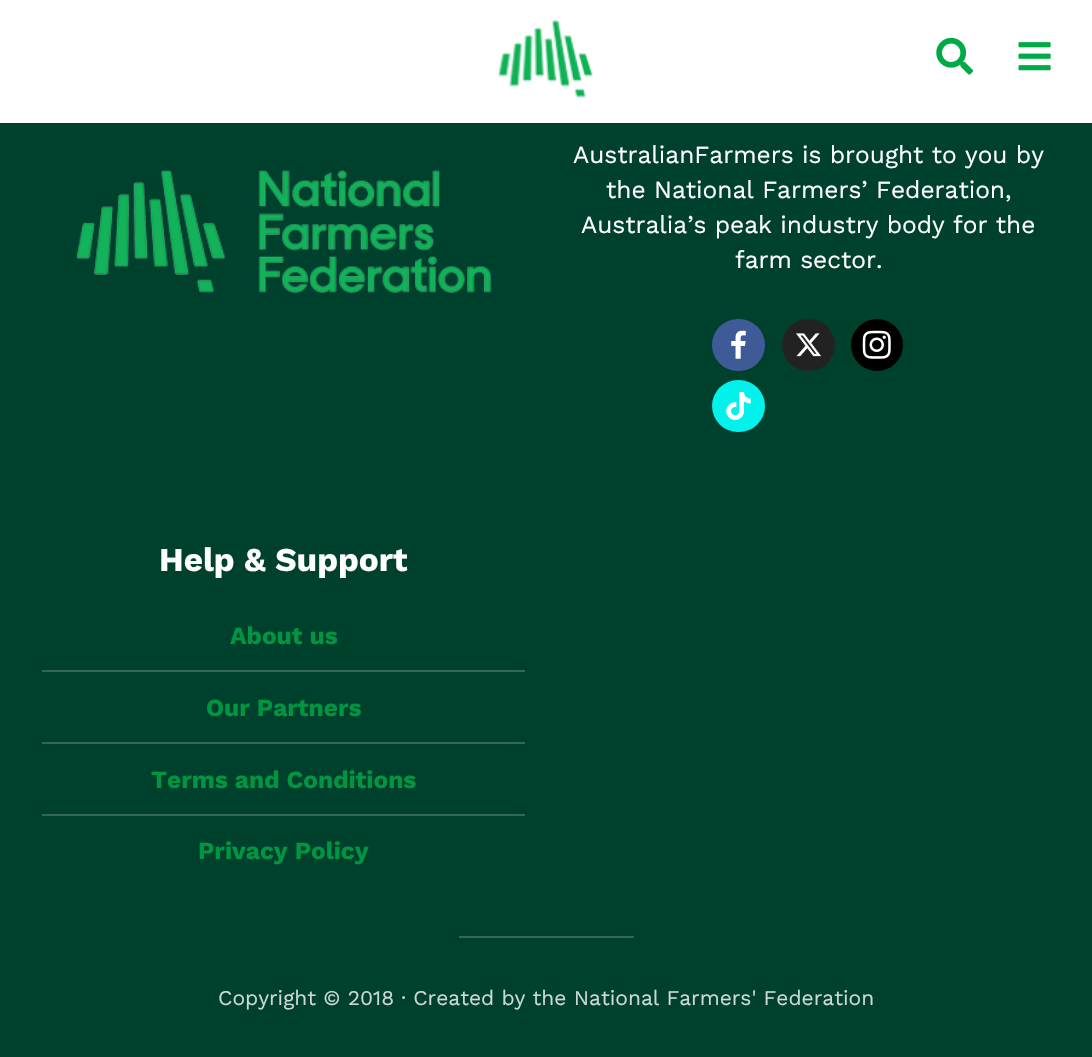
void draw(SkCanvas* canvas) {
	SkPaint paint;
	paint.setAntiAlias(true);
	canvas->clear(0xff00412d);
	paint.setColor(0xffffffff);
	canvas->drawRect(SkRect::MakeXYWH(0, 0, 1092, 123), paint);
	canvas->drawImageRect(SkImages::DeferredFromEncodedData(SkData::MakeFromFileName("img1.png")), SkRect::MakeXYWH(497, 19, 96, 79), SkSamplingOptions());
	canvas->drawImageRect(SkImages::DeferredFromEncodedData(SkData::MakeFromFileName("img2.png")), SkRect::MakeXYWH(936, 37, 37, 38), SkSamplingOptions());
	canvas->drawImageRect(SkImages::DeferredFromEncodedData(SkData::MakeFromFileName("img3.png")), SkRect::MakeXYWH(1018, 42, 33, 29), SkSamplingOptions());
	canvas->drawImageRect(SkImages::DeferredFromEncodedData(SkData::MakeFromFileName("img4.png")), SkRect::MakeXYWH(76, 169, 416, 124), SkSamplingOptions());
	SkFont f1(fontMgr->matchFamilyStyle("Work Sans", SkFontStyle::Normal()), 24.5);
	f1.setSubpixel(true);
	canvas->drawString("AustralianFarmers is brought to you by", 573, 163, f1, paint);
	canvas->drawString("the National Farmers’ Federation,", 606, 198, f1, paint);
	canvas->drawString("Australia’s peak industry body for the", 581, 233, f1, paint);
	canvas->drawString("farm sector.", 735, 268, f1, paint);
	paint.setColor(0xff3e5b98);
	canvas->drawRoundRect(SkRect::MakeXYWH(712, 319, 53, 52), 26, 26, paint);
	canvas->drawImageRect(SkImages::DeferredFromEncodedData(SkData::MakeFromFileName("img5.png")), SkRect::MakeXYWH(731, 330, 15, 29), SkSamplingOptions());
	paint.setColor(0xff222222);
	canvas->drawRoundRect(SkRect::MakeXYWH(782, 319, 53, 52), 26, 26, paint);
	canvas->drawImageRect(SkImages::DeferredFromEncodedData(SkData::MakeFromFileName("img6.png")), SkRect::MakeXYWH(796, 333, 25, 24), SkSamplingOptions());
	paint.setColor(0xff000000);
	canvas->drawCircle(877, 345, 26, paint);
	canvas->drawImageRect(SkImages::DeferredFromEncodedData(SkData::MakeFromFileName("img7.png")), SkRect::MakeXYWH(862, 330, 29, 29), SkSamplingOptions());
	paint.setColor(0xff00f2ea);
	canvas->drawRoundRect(SkRect::MakeXYWH(712, 380, 53, 52), 26, 26, paint);
	canvas->drawImageRect(SkImages::DeferredFromEncodedData(SkData::MakeFromFileName("img8.png")), SkRect::MakeXYWH(726, 392, 25, 28), SkSamplingOptions());
	SkFont f2(fontMgr->matchFamilyStyle("Work Sans", SkFontStyle::Bold()), 33.25);
	f2.setSubpixel(true);
	paint.setColor(0xffffffff);
	canvas->drawString("Help & Support", 159, 571, f2, paint);
	paint.setColor(0xff336757);
	canvas->drawRect(SkRect::MakeXYWH(42, 670, 483, 2), paint);
	SkFont f3(fontMgr->matchFamilyStyle("Work Sans", SkFontStyle::Bold()), 24.5);
	f3.setSubpixel(true);
	paint.setColor(0xff009541);
	canvas->drawString("About us", 230, 644, f3, paint);
	paint.setColor(0xff336757);
	canvas->drawRect(SkRect::MakeXYWH(42, 742, 483, 2), paint);
	paint.setColor(0xff009541);
	canvas->drawString("Our Partners", 206, 716, f3, paint);
	paint.setColor(0xff336757);
	canvas->drawRect(SkRect::MakeXYWH(42, 814, 483, 2), paint);
	paint.setColor(0xff009541);
	canvas->drawString("Terms and Conditions", 151, 788, f3, paint);
	canvas->drawString("Privacy Policy", 198, 859, f3, paint);
	paint.setColor(0xff336757);
	canvas->drawRect(SkRect::MakeXYWH(459, 936, 175, 2), paint);
	SkFont f4(fontMgr->matchFamilyStyle("Work Sans", SkFontStyle::Normal()), 21);
	f4.setSubpixel(true);
	paint.setColor(0xffccd9d5);
	canvas->drawString("Copyright © 2018 · Created by the National Farmers' Federation", 218, 1005, f4, paint);
}
